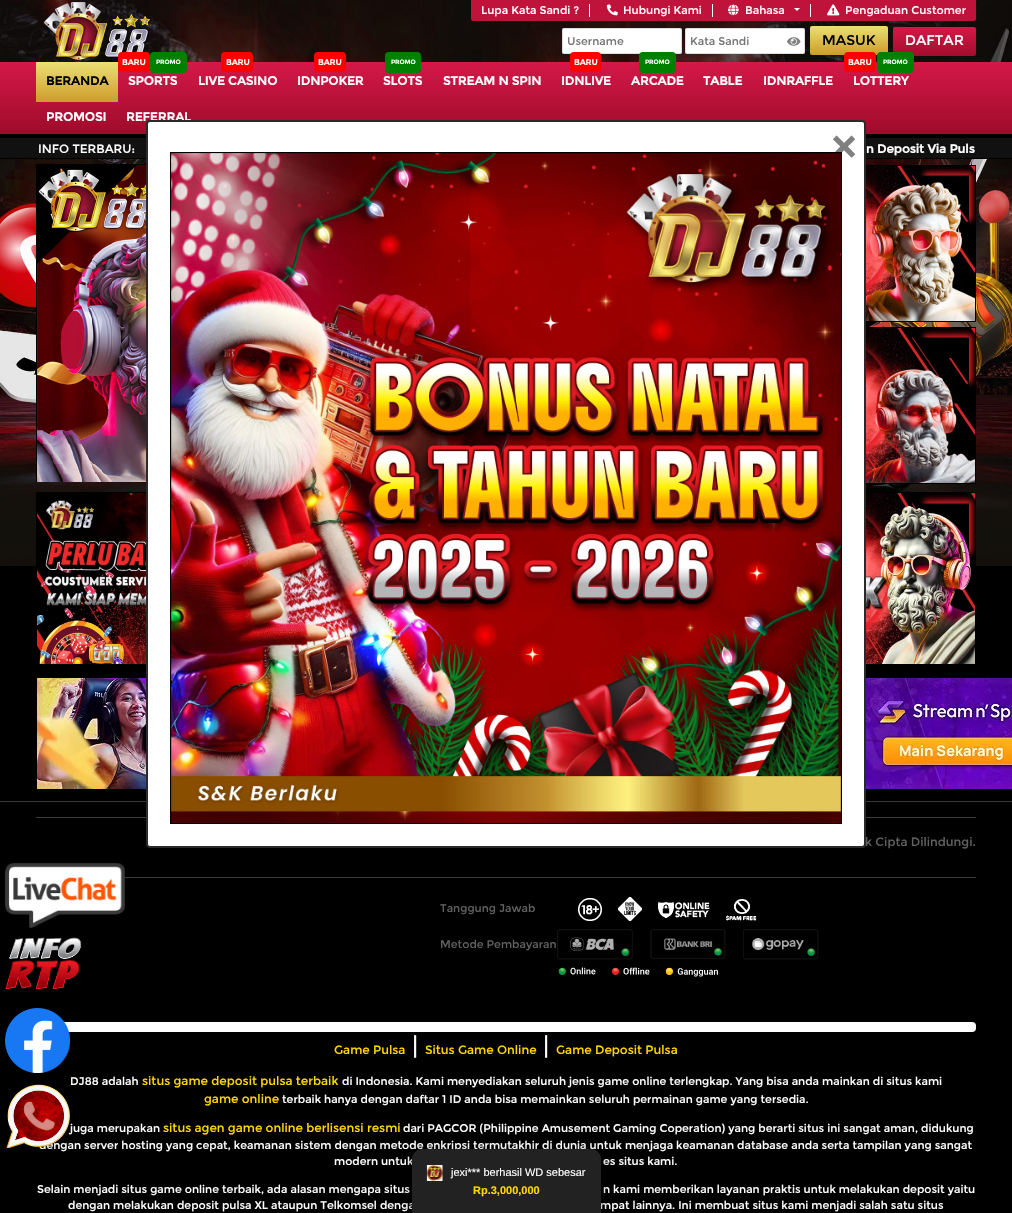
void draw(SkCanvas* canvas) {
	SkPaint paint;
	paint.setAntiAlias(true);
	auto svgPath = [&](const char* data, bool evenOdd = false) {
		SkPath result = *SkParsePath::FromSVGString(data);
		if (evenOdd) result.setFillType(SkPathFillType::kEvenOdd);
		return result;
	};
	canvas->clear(0xff000000);
	canvas->drawImageRect(SkImages::DeferredFromEncodedData(SkData::MakeFromFileName("img1.png")), SkRect::MakeXYWH(0, 0, 1012, 62), SkSamplingOptions());
	canvas->drawImageRect(SkImages::DeferredFromEncodedData(SkData::MakeFromFileName("img2.png")), SkRect::MakeXYWH(44, 2, 106, 58), SkSamplingOptions());
	paint.setColor(0xffbf133c);
	canvas->drawPath(svgPath("M471 0H976V19C976 20 975 21 974 21H473C472 21 471 20 471 19Z"), paint);
	paint.setColor(0xffffffff);
	canvas->drawRect(SkRect::MakeXYWH(589, 4, 1, 13), paint);
	SkFont f1(fontMgr->matchFamilyStyle("Montserrat", SkFontStyle::Normal()), 11);
	f1.setSubpixel(true);
	canvas->drawString("Lupa Kata Sandi ?", 481, 14, f1, paint);
	canvas->drawRect(SkRect::MakeXYWH(712, 4, 1, 13), paint);
	canvas->drawImageRect(SkImages::DeferredFromEncodedData(SkData::MakeFromFileName("img3.png")), SkRect::MakeXYWH(606, 4, 12, 12), SkSamplingOptions());
	canvas->drawString("Hubungi Kami", 623, 14, f1, paint);
	canvas->drawRect(SkRect::MakeXYWH(810, 4, 1, 13), paint);
	canvas->drawImageRect(SkImages::DeferredFromEncodedData(SkData::MakeFromFileName("img4.png")), SkRect::MakeXYWH(728, 4, 11, 12), SkSamplingOptions());
	canvas->drawString("Bahasa", 745, 14, f1, paint);
	canvas->drawPath(svgPath("M794 8H800L797 11Z"), paint);
	canvas->drawImageRect(SkImages::DeferredFromEncodedData(SkData::MakeFromFileName("img5.png")), SkRect::MakeXYWH(827, 4, 13, 12), SkSamplingOptions());
	canvas->drawString("Pengaduan Customer", 845, 14, f1, paint);
	canvas->drawRoundRect(SkRect::MakeXYWH(562, 28, 120, 26), 2, 2, paint);
	paint.setStroke(true);
	paint.setStrokeWidth(1);
	paint.setColor(0x4d8395a5);
	canvas->drawRoundRect(SkRect::MakeXYWH(562.5, 28.5, 119, 25), 1.5, 1.5, paint);
	paint.setStroke(false);
	paint.setColor(0xff757575);
	canvas->drawString("Username", 567, 45, f1, paint);
	paint.setColor(0xffffffff);
	canvas->drawRoundRect(SkRect::MakeXYWH(685, 28, 120, 26), 2, 2, paint);
	paint.setStroke(true);
	paint.setColor(0x4d8395a5);
	canvas->drawRoundRect(SkRect::MakeXYWH(685.5, 28.5, 119, 25), 1.5, 1.5, paint);
	paint.setStroke(false);
	paint.setColor(0xff757575);
	canvas->drawString("Kata Sandi", 690, 45, f1, paint);
	canvas->drawImageRect(SkImages::DeferredFromEncodedData(SkData::MakeFromFileName("img6.png")), SkRect::MakeXYWH(787, 37, 14, 9), SkSamplingOptions());
	{
		const SkColor colors[] = {0xffebdf75, 0xffcc9c28};
		const float stops[] = {0, 1};
		const SkPoint ends[] = {{849, 26}, {849, 55}};
		paint.setShader(SkGradientShader::MakeLinear(ends, colors, stops, 2, SkTileMode::kClamp));
		paint.setAlpha(255);
	}
	canvas->drawRoundRect(SkRect::MakeXYWH(810, 26, 78, 29), 2, 2, paint);
	SkFont f2(fontMgr->matchFamilyStyle("Montserrat", SkFontStyle::Normal()), 14);
	f2.setSubpixel(true);
	paint.setShader(nullptr);
	paint.setColor(0xff000000);
	canvas->drawString("MASUK", 822, 45, f2, paint);
	{
		const SkColor colors[] = {0xffd41847, 0xffa40d2e};
		const float stops[] = {0, 1};
		const SkPoint ends[] = {{935, 27}, {935, 56}};
		paint.setShader(SkGradientShader::MakeLinear(ends, colors, stops, 2, SkTileMode::kClamp));
		paint.setAlpha(255);
	}
	canvas->drawRoundRect(SkRect::MakeXYWH(893, 27, 83, 29), 2, 2, paint);
	paint.setShader(nullptr);
	paint.setColor(0xffffffff);
	canvas->drawString("DAFTAR", 905, 45, f2, paint);
	{
		const SkColor colors[] = {0xffd51848, 0xff9e0b2b};
		const float stops[] = {0, 1};
		const SkPoint ends[] = {{506, 62}, {506, 134}};
		paint.setShader(SkGradientShader::MakeLinear(ends, colors, stops, 2, SkTileMode::kClamp));
		paint.setAlpha(255);
	}
	canvas->drawRect(SkRect::MakeXYWH(0, 62, 1012, 72), paint);
	{
		const SkColor colors[] = {0xffebdf75, 0xffcd9d2a};
		const float stops[] = {0, 1};
		const SkPoint ends[] = {{77, 62}, {77, 102}};
		paint.setShader(SkGradientShader::MakeLinear(ends, colors, stops, 2, SkTileMode::kClamp));
		paint.setAlpha(255);
	}
	canvas->drawRect(SkRect::MakeXYWH(36, 62, 82, 40), paint);
	SkFont f3(fontMgr->matchFamilyStyle("Montserrat", SkFontStyle::Bold()), 12);
	f3.setSubpixel(true);
	paint.setShader(nullptr);
	paint.setColor(0xff000000);
	canvas->drawString("BERANDA", 46, 85, f3, paint);
	paint.setColor(0xffff0000);
	canvas->drawRoundRect(SkRect::MakeXYWH(118, 52, 32, 20), 4, 4, paint);
	SkFont f4(fontMgr->matchFamilyStyle("Montserrat", SkFontStyle::Bold()), 8);
	f4.setSubpixel(true);
	paint.setColor(0xffffffff);
	canvas->drawString("BARU", 122, 65, f4, paint);
	paint.setColor(0xff008000);
	canvas->drawRoundRect(SkRect::MakeXYWH(150, 52, 37, 21), 4, 4, paint);
	SkFont f5(fontMgr->matchFamilyStyle("Montserrat", SkFontStyle::Bold()), 6);
	f5.setSubpixel(true);
	paint.setColor(0xffffffff);
	canvas->drawString("PROMO", 156, 64, f5, paint);
	canvas->drawString("SPORTS", 128, 85, f3, paint);
	paint.setColor(0xffff0000);
	canvas->drawRoundRect(SkRect::MakeXYWH(221, 52, 32, 20), 4, 4, paint);
	paint.setColor(0xffffffff);
	canvas->drawString("BARU", 226, 65, f4, paint);
	canvas->drawString("LIVE CASINO", 198, 85, f3, paint);
	paint.setColor(0xffff0000);
	canvas->drawRoundRect(SkRect::MakeXYWH(314, 52, 32, 20), 4, 4, paint);
	paint.setColor(0xffffffff);
	canvas->drawString("BARU", 318, 65, f4, paint);
	canvas->drawString("IDNPOKER", 297, 85, f3, paint);
	paint.setColor(0xff008000);
	canvas->drawRoundRect(SkRect::MakeXYWH(385, 52, 36, 21), 4, 4, paint);
	paint.setColor(0xffffffff);
	canvas->drawString("PROMO", 391, 64, f5, paint);
	canvas->drawString("SLOTS", 383, 85, f3, paint);
	canvas->drawString("STREAM N SPIN", 443, 85, f3, paint);
	paint.setColor(0xffff0000);
	canvas->drawRoundRect(SkRect::MakeXYWH(570, 52, 31, 20), 4, 4, paint);
	paint.setColor(0xffffffff);
	canvas->drawString("BARU", 574, 65, f4, paint);
	canvas->drawString("IDNLIVE", 561, 85, f3, paint);
	paint.setColor(0xff008000);
	canvas->drawRoundRect(SkRect::MakeXYWH(639, 52, 37, 21), 4, 4, paint);
	paint.setColor(0xffffffff);
	canvas->drawString("PROMO", 645, 64, f5, paint);
	canvas->drawString("ARCADE", 631, 85, f3, paint);
	canvas->drawString("TABLE", 703, 85, f3, paint);
	canvas->drawString("IDNRAFFLE", 763, 85, f3, paint);
	paint.setColor(0xffff0000);
	canvas->drawRoundRect(SkRect::MakeXYWH(844, 52, 32, 20), 4, 4, paint);
	paint.setColor(0xffffffff);
	canvas->drawString("BARU", 848, 65, f4, paint);
	paint.setColor(0xff008000);
	canvas->drawRoundRect(SkRect::MakeXYWH(877, 52, 37, 21), 4, 4, paint);
	paint.setColor(0xffffffff);
	canvas->drawString("PROMO", 883, 64, f5, paint);
	canvas->drawString("LOTTERY", 853, 85, f3, paint);
	canvas->drawString("PROMOSI", 46, 121, f3, paint);
	canvas->drawString("REFERRAL", 126, 121, f3, paint);
	canvas->drawImageRect(SkImages::DeferredFromEncodedData(SkData::MakeFromFileName("img7.png")), SkRect::MakeXYWH(0, 159, 1012, 407), SkSamplingOptions());
	canvas->save();
	canvas->clipRect(SkRect::MakeXYWH(36, 164, 625, 318));
	paint.setStroke(true);
	paint.setColor(0xff000000);
	canvas->drawRect(SkRect::MakeXYWH(36.5, 164.5, 624, 319), paint);
	canvas->restore();
	canvas->drawRect(SkRect::MakeXYWH(666.5, 165.5, 309, 156), paint);
	canvas->drawRect(SkRect::MakeXYWH(666.5, 327.5, 309, 156), paint);
	canvas->drawRect(SkRect::MakeXYWH(36.5, 492.5, 309, 172), paint);
	canvas->drawRect(SkRect::MakeXYWH(666.5, 492.5, 309, 172), paint);
	canvas->drawImageRect(SkImages::DeferredFromEncodedData(SkData::MakeFromFileName("img14.png")), SkRect::MakeXYWH(37, 678, 975, 111), SkSamplingOptions());
	paint.setStroke(false);
	paint.setColor(0xff111111);
	canvas->drawRect(SkRect::MakeXYWH(0, 138, 1012, 20), paint);
	paint.setColor(0xff383838);
	canvas->drawRect(SkRect::MakeXYWH(0, 801, 1012, 1), paint);
	paint.setColor(0xff3c3c3c);
	canvas->drawRect(SkRect::MakeXYWH(36, 817, 940, 1), paint);
	paint.setColor(0xffffffff);
	canvas->drawRoundRect(SkRect::MakeXYWH(147, 121, 718, 726), 3, 3, paint);
	paint.setStroke(true);
	paint.setStrokeWidth(2);
	paint.setColor(0xff2a2a2a);
	canvas->drawRoundRect(SkRect::MakeXYWH(147, 121, 718, 726), 3, 3, paint);
	SkFont f6(fontMgr->matchFamilyStyle("Montserrat", SkFontStyle::Bold()), 44);
	f6.setSubpixel(true);
	paint.setStroke(false);
	paint.setColor(0xff808080);
	canvas->drawString("×", 831, 164, f6, paint);
	paint.setStroke(true);
	paint.setStrokeWidth(1);
	paint.setColor(0xff000000);
	canvas->drawRect(SkRect::MakeXYWH(170.5, 152.5, 671, 671), paint);
	canvas->drawImageRect(SkImages::DeferredFromEncodedData(SkData::MakeFromFileName("img8.png")), SkRect::MakeXYWH(171, 153, 670, 670), SkSamplingOptions());
	canvas->drawImageRect(SkImages::DeferredFromEncodedData(SkData::MakeFromFileName("img9.png")), SkRect::MakeXYWH(37, 165, 109, 317), SkSamplingOptions());
	canvas->drawImageRect(SkImages::DeferredFromEncodedData(SkData::MakeFromFileName("img10.png")), SkRect::MakeXYWH(866, 166, 109, 155), SkSamplingOptions());
	canvas->drawImageRect(SkImages::DeferredFromEncodedData(SkData::MakeFromFileName("img11.png")), SkRect::MakeXYWH(866, 328, 109, 155), SkSamplingOptions());
	canvas->drawImageRect(SkImages::DeferredFromEncodedData(SkData::MakeFromFileName("img12.png")), SkRect::MakeXYWH(37, 493, 109, 171), SkSamplingOptions());
	canvas->drawImageRect(SkImages::DeferredFromEncodedData(SkData::MakeFromFileName("img13.png")), SkRect::MakeXYWH(866, 493, 109, 171), SkSamplingOptions());
	SkFont f7(fontMgr->matchFamilyStyle("Montserrat", SkFontStyle::Normal()), 12);
	f7.setSubpixel(true);
	paint.setStroke(false);
	paint.setColor(0xffffffff);
	canvas->drawString("INFO TERBARU:", 38, 153, f7, paint);
	canvas->drawString("n Deposit Via Puls", 866, 153, f3, paint);
	paint.setColor(0xff616161);
	canvas->drawString("k Cipta Dilindungi.", 865, 846, f7, paint);
	paint.setColor(0xff3c3c3c);
	canvas->drawRect(SkRect::MakeXYWH(124, 877, 852, 1), paint);
	paint.setColor(0xff616161);
	canvas->drawString("Tanggung Jawab", 440, 912, f1, paint);
	canvas->drawImageRect(SkImages::DeferredFromEncodedData(SkData::MakeFromFileName("img15.png")), SkRect::MakeXYWH(578, 898, 24, 23), SkSamplingOptions());
	canvas->drawImageRect(SkImages::DeferredFromEncodedData(SkData::MakeFromFileName("img16.png")), SkRect::MakeXYWH(618, 897, 24, 24), SkSamplingOptions());
	canvas->drawImageRect(SkImages::DeferredFromEncodedData(SkData::MakeFromFileName("img17.png")), SkRect::MakeXYWH(658, 902, 52, 16), SkSamplingOptions());
	canvas->drawImageRect(SkImages::DeferredFromEncodedData(SkData::MakeFromFileName("img18.png")), SkRect::MakeXYWH(726, 899, 31, 22), SkSamplingOptions());
	canvas->drawString("Metode Pembayaran", 440, 948, f1, paint);
	canvas->drawImageRect(SkImages::DeferredFromEncodedData(SkData::MakeFromFileName("img19.png")), SkRect::MakeXYWH(557, 929, 76, 31), SkSamplingOptions());
	canvas->drawImageRect(SkImages::DeferredFromEncodedData(SkData::MakeFromFileName("img20.png")), SkRect::MakeXYWH(650, 929, 76, 30), SkSamplingOptions());
	canvas->drawImageRect(SkImages::DeferredFromEncodedData(SkData::MakeFromFileName("img21.png")), SkRect::MakeXYWH(743, 929, 76, 31), SkSamplingOptions());
	canvas->drawImageRect(SkImages::DeferredFromEncodedData(SkData::MakeFromFileName("img22.png")), SkRect::MakeXYWH(558, 967, 160, 10), SkSamplingOptions());
	canvas->drawImageRect(SkImages::DeferredFromEncodedData(SkData::MakeFromFileName("img23.png")), SkRect::MakeXYWH(5, 862, 120, 66), SkSamplingOptions());
	canvas->drawImageRect(SkImages::DeferredFromEncodedData(SkData::MakeFromFileName("img24.png")), SkRect::MakeXYWH(5, 937, 77, 53), SkSamplingOptions());
	paint.setColor(0xffffffff);
	canvas->drawRoundRect(SkRect::MakeXYWH(36, 1022, 940, 10), 4, 4, paint);
	canvas->drawImageRect(SkImages::DeferredFromEncodedData(SkData::MakeFromFileName("img25.png")), SkRect::MakeXYWH(5, 1008, 65, 65), SkSamplingOptions());
	paint.setColor(0xffffd700);
	canvas->drawString("Game Pulsa", 334, 1054, f7, paint);
	SkFont f8(fontMgr->matchFamilyStyle("Montserrat", SkFontStyle::Normal()), 24);
	f8.setSubpixel(true);
	paint.setColor(0xffffffff);
	canvas->drawString("|", 412, 1054, f8, paint);
	paint.setColor(0xffffd700);
	canvas->drawString("Situs Game Online", 425, 1054, f7, paint);
	paint.setColor(0xffffffff);
	canvas->drawString("|", 543, 1054, f8, paint);
	paint.setColor(0xffffd700);
	canvas->drawString("Game Deposit Pulsa", 556, 1054, f7, paint);
	paint.setColor(0xffffffff);
	canvas->drawString("DJ88 adalah", 70, 1085, f1, paint);
	paint.setColor(0xffffd700);
	canvas->drawString("situs game deposit pulsa terbaik", 142, 1085, f7, paint);
	paint.setColor(0xffffffff);
	canvas->drawString("di Indonesia. Kami menyediakan seluruh jenis game online terlengkap. Yang bisa anda mainkan di situs kami", 342, 1085, f1, paint);
	paint.setColor(0xffffd700);
	canvas->drawString("game online", 204, 1103, f7, paint);
	paint.setColor(0xffffffff);
	canvas->drawString("terbaik hanya dengan daftar 1 ID anda bisa memainkan seluruh permainan game yang tersedia.", 282, 1103, f1, paint);
	canvas->drawString("juga merupakan", 70, 1132, f1, paint);
	paint.setColor(0xffffd700);
	canvas->drawString("situs agen game online berlisensi resmi", 163, 1132, f7, paint);
	paint.setColor(0xffffffff);
	canvas->drawString("dari PAGCOR (Philippine Amusement Gaming Coperation) yang berarti situs ini sangat aman, didukung", 403, 1132, f1, paint);
	canvas->drawString("dengan server hosting yang cepat, keamanan sistem dengan metode enkripsi termutakhir di dunia untuk menjaga keamanan database anda serta tampilan yang sangat", 39, 1149, f1, paint);
	canvas->drawString("modern untuk", 334, 1165, f1, paint);
	canvas->drawString("es situs kami.", 603, 1165, f1, paint);
	canvas->drawString("Selain menjadi situs game online terbaik, ada alasan mengapa situs", 37, 1193, f1, paint);
	canvas->drawString("n kami memberikan layanan praktis untuk melakukan deposit yaitu", 603, 1193, f1, paint);
	canvas->drawString("dengan melakukan deposit pulsa XL ataupun Telkomsel denga", 68, 1209, f1, paint);
	canvas->drawString("mpat lainnya. Ini membuat situs kami menjadi salah satu situs", 600, 1209, f1, paint);
	canvas->drawImageRect(SkImages::DeferredFromEncodedData(SkData::MakeFromFileName("img26.png")), SkRect::MakeXYWH(6, 1084, 64, 64), SkSamplingOptions());
	paint.setColor(0x80000000);
	paint.setMaskFilter(SkMaskFilter::MakeBlur(kNormal_SkBlurStyle, 4));
	canvas->drawRoundRect(SkRect::MakeXYWH(412, 1153, 189, 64), 10, 10, paint);
	paint.setMaskFilter(nullptr);
	paint.setColor(0xff222222);
	canvas->drawPath(svgPath("M422 1149H591C596.5 1149 601 1153.5 601 1159V1213H412V1159C412 1153.5 416.5 1149 422 1149Z"), paint);
	canvas->drawImageRect(SkImages::DeferredFromEncodedData(SkData::MakeFromFileName("img27.png")), SkRect::MakeXYWH(426, 1165, 17, 16), SkSamplingOptions());
	SkFont f9(fontMgr->matchFamilyStyle("Liberation Sans", SkFontStyle::Normal()), 11);
	f9.setSubpixel(true);
	paint.setColor(0xffffffff);
	canvas->drawString("jexi*** berhasil WD sebesar", 451, 1176, f9, paint);
	SkFont f10(fontMgr->matchFamilyStyle("Liberation Sans", SkFontStyle::Bold()), 11);
	f10.setSubpixel(true);
	paint.setColor(0xffffd700);
	canvas->drawString("Rp.3,000,000", 473, 1194, f10, paint);
}
